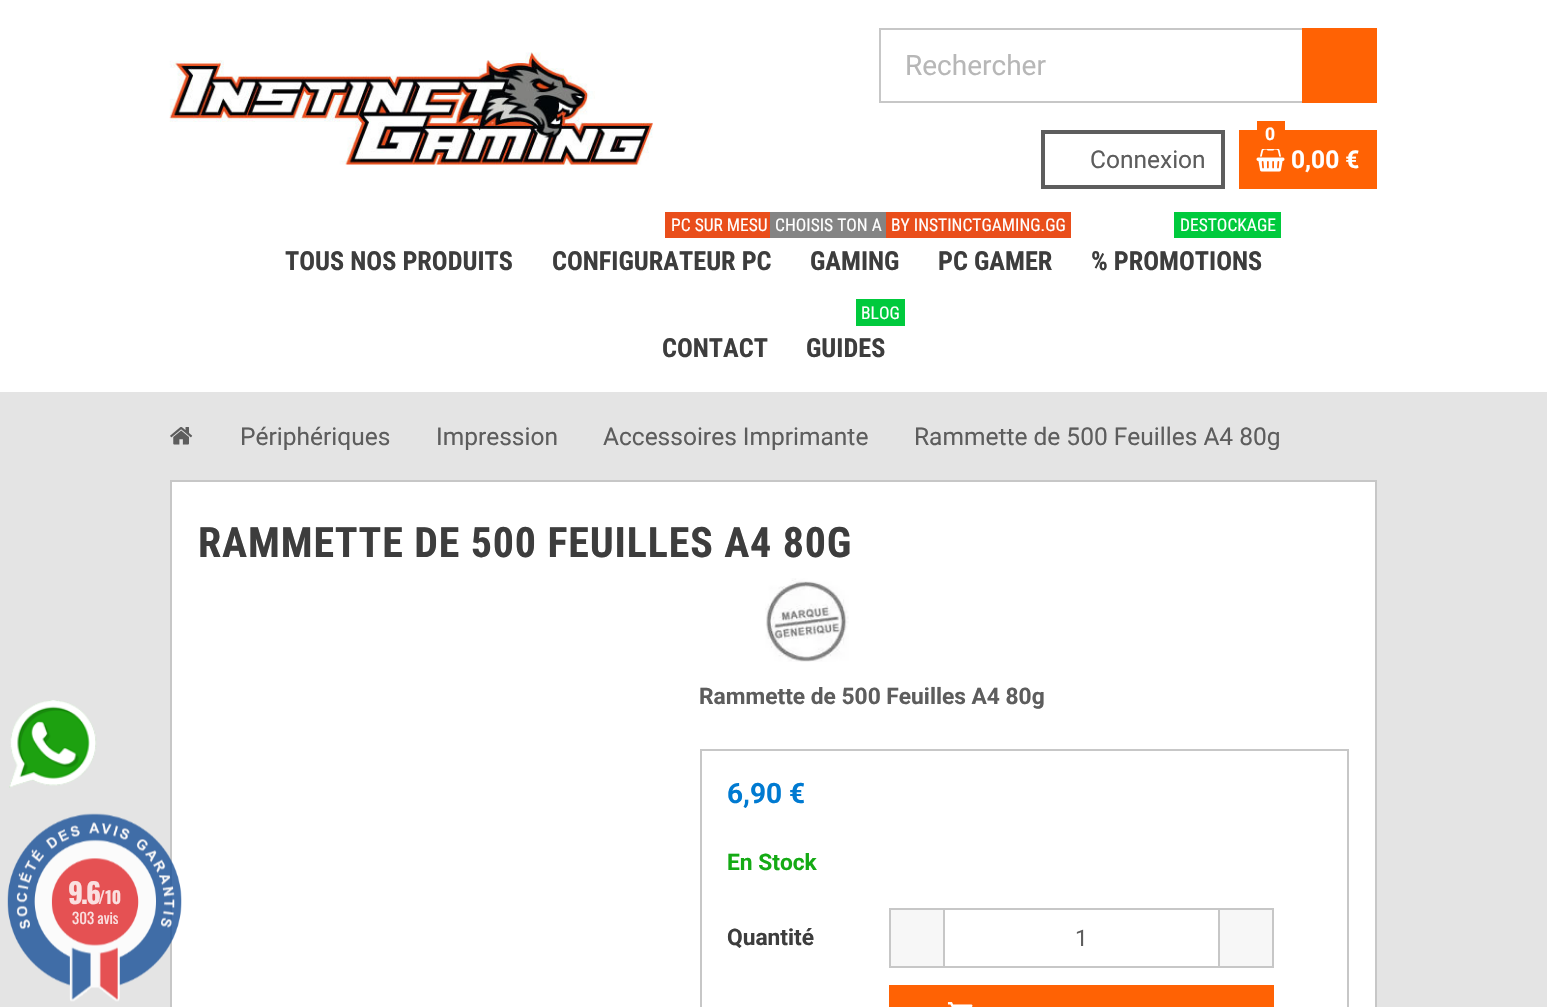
void draw(SkCanvas* canvas) {
	SkPaint paint;
	paint.setAntiAlias(true);
	auto spacedText = [&](const char* s, float x, float y, const SkFont& font, const SkPaint& ink, float letter, float word) {
		std::vector<SkGlyphID> glyphs(font.countText(s, strlen(s), SkTextEncoding::kUTF8));
		std::vector<float> xs(glyphs.size());
		font.textToGlyphs(s, strlen(s), SkTextEncoding::kUTF8, glyphs);
		font.getXPos(glyphs, xs, x);
		float extra = 0;
		for (size_t i = 0; i < glyphs.size(); i++) {
			xs[i] += extra;
			extra += letter + word * (glyphs[i] == font.unicharToGlyph(' '));
		}
		canvas->drawTextBlob(SkTextBlob::MakeFromPosHGlyphs(glyphs, xs, y, font), 0, 0, ink);
	};
	canvas->clear(0xffffffff);
	paint.setColor(0xffe4e4e4);
	canvas->drawRect(SkRect::MakeXYWH(0, 392, 1547, 615), paint);
	paint.setColor(0xffffffff);
	canvas->drawRect(SkRect::MakeXYWH(171, 481, 1205, 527), paint);
	paint.setStroke(true);
	paint.setStrokeWidth(2);
	paint.setColor(0xffc7c7c7);
	canvas->drawRect(SkRect::MakeXYWH(171, 481, 1205, 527), paint);
	canvas->drawImageRect(SkImages::DeferredFromEncodedData(SkData::MakeFromFileName("img1.png")), SkRect::MakeXYWH(7, 813, 175, 189), SkSamplingOptions());
	SkFont f1(fontMgr->matchFamilyStyle("Oswald", SkFontStyle::Bold()), 28);
	f1.setSubpixel(true);
	paint.setStroke(false);
	paint.setColor(0xfffae0e0);
	spacedText("9.6", 68, 904, f1, paint, -2, 0);
	SkFont f2(fontMgr->matchFamilyStyle("Oswald", SkFontStyle::Bold()), 17);
	f2.setSubpixel(true);
	canvas->drawString("/10", 98, 904, f2, paint);
	SkFont f3(fontMgr->matchFamilyStyle("Oswald", SkFontStyle::Normal()), 15);
	f3.setSubpixel(true);
	canvas->drawString("303 avis", 72, 924, f3, paint);
	canvas->drawImageRect(SkImages::DeferredFromEncodedData(SkData::MakeFromFileName("img2.png")), SkRect::MakeXYWH(169, 52, 484, 113), SkSamplingOptions());
	paint.setStroke(true);
	paint.setColor(0xffc7c7c7);
	canvas->drawRect(SkRect::MakeXYWH(880, 29, 495, 73), paint);
	SkFont f4(fontMgr->matchFamilyStyle("Roboto", SkFontStyle::Normal()), 28);
	f4.setSubpixel(true);
	paint.setStroke(false);
	paint.setColor(0xffb7b7b7);
	canvas->drawString("Rechercher", 905, 75, f4, paint);
	paint.setColor(0xffff6204);
	canvas->drawRect(SkRect::MakeXYWH(1302, 28, 75, 75), paint);
	paint.setStroke(true);
	paint.setStrokeWidth(4);
	paint.setColor(0xff5d5d5d);
	canvas->drawRect(SkRect::MakeXYWH(1043, 132, 180, 55), paint);
	SkFont f5(fontMgr->matchFamilyStyle("Roboto", SkFontStyle::Normal()), 24.5);
	f5.setSubpixel(true);
	paint.setStroke(false);
	canvas->drawString("Connexion", 1090, 168, f5, paint);
	paint.setColor(0xffff6204);
	canvas->drawRect(SkRect::MakeXYWH(1239, 130, 138, 59), paint);
	canvas->drawRect(SkRect::MakeXYWH(1257, 121, 28, 9), paint);
	SkFont f6(fontMgr->matchFamilyStyle("Roboto", SkFontStyle::Bold()), 17.5);
	f6.setSubpixel(true);
	paint.setColor(0xffffffff);
	canvas->drawString("0", 1265, 140, f6, paint);
	canvas->drawImageRect(SkImages::DeferredFromEncodedData(SkData::MakeFromFileName("img3.png")), SkRect::MakeXYWH(1256, 149, 29, 23), SkSamplingOptions());
	SkFont f7(fontMgr->matchFamilyStyle("Roboto", SkFontStyle::Bold()), 24.5);
	f7.setSubpixel(true);
	canvas->drawString("0,00 €", 1291, 168, f7, paint);
	SkFont f8(fontMgr->matchFamilyStyle("Roboto Condensed", SkFontStyle::Bold()), 26.25);
	f8.setSubpixel(true);
	paint.setColor(0xff3d3d3d);
	canvas->drawString("TOUS NOS PRODUITS", 285, 270, f8, paint);
	paint.setColor(0xffe94e1b);
	canvas->drawRect(SkRect::MakeXYWH(665, 212, 105, 26), paint);
	SkFont f9(fontMgr->matchFamilyStyle("Roboto Condensed", SkFontStyle::Normal()), 17.5);
	f9.setSubpixel(true);
	paint.setColor(0xffffffff);
	canvas->drawString("PC SUR MESU", 671, 231, f9, paint);
	paint.setColor(0xff3d3d3d);
	canvas->drawString("CONFIGURATEUR PC", 552, 270, f8, paint);
	paint.setColor(0xff848484);
	canvas->drawRect(SkRect::MakeXYWH(770, 212, 116, 26), paint);
	paint.setColor(0xffffffff);
	canvas->drawString("CHOISIS TON A", 775, 231, f9, paint);
	paint.setColor(0xff3d3d3d);
	canvas->drawString("GAMING", 810, 270, f8, paint);
	paint.setColor(0xffe94e1b);
	canvas->drawRect(SkRect::MakeXYWH(886, 212, 185, 26), paint);
	paint.setColor(0xffffffff);
	canvas->drawString("BY INSTINCTGAMING.GG", 891, 231, f9, paint);
	paint.setColor(0xff3d3d3d);
	canvas->drawString("PC GAMER", 938, 270, f8, paint);
	paint.setColor(0xff00ca3d);
	canvas->drawRect(SkRect::MakeXYWH(1174, 212, 107, 26), paint);
	paint.setColor(0xffffffff);
	canvas->drawString("DESTOCKAGE", 1180, 231, f9, paint);
	paint.setColor(0xff3d3d3d);
	canvas->drawString("% PROMOTIONS", 1091, 270, f8, paint);
	canvas->drawString("CONTACT", 662, 357, f8, paint);
	paint.setColor(0xff00ca3d);
	canvas->drawRect(SkRect::MakeXYWH(856, 299, 49, 27), paint);
	paint.setColor(0xffffffff);
	canvas->drawString("BLOG", 861, 319, f9, paint);
	paint.setColor(0xff3d3d3d);
	canvas->drawString("GUIDES", 806, 357, f8, paint);
	canvas->drawImageRect(SkImages::DeferredFromEncodedData(SkData::MakeFromFileName("img4.png")), SkRect::MakeXYWH(9, 700, 88, 88), SkSamplingOptions());
	canvas->drawImageRect(SkImages::DeferredFromEncodedData(SkData::MakeFromFileName("img5.png")), SkRect::MakeXYWH(170, 427, 23, 18), SkSamplingOptions());
	paint.setColor(0xff5d5d5d);
	canvas->drawString("Périphériques", 240, 445, f5, paint);
	canvas->drawString("Impression", 436, 445, f5, paint);
	canvas->drawString("Accessoires Imprimante", 603, 445, f5, paint);
	canvas->drawString("Rammette de 500 Feuilles A4 80g", 914, 445, f5, paint);
	SkFont f10(fontMgr->matchFamilyStyle("Roboto Condensed", SkFontStyle::Bold()), 42);
	f10.setSubpixel(true);
	paint.setColor(0xff3d3d3d);
	spacedText("RAMMETTE DE 500 FEUILLES A4 80G", 198, 557, f10, paint, 0.85, 0);
	canvas->drawImageRect(SkImages::DeferredFromEncodedData(SkData::MakeFromFileName("img6.png")), SkRect::MakeXYWH(765, 578, 84, 84), SkSamplingOptions());
	SkFont f11(fontMgr->matchFamilyStyle("Roboto", SkFontStyle::Bold()), 22.75);
	f11.setSubpixel(true);
	paint.setColor(0xff5d5d5d);
	canvas->drawString("Rammette de 500 Feuilles A4 80g", 699, 704, f11, paint);
	paint.setStroke(true);
	paint.setStrokeWidth(2);
	paint.setColor(0xffc7c7c7);
	canvas->drawRect(SkRect::MakeXYWH(701, 750, 647, 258), paint);
	SkFont f12(fontMgr->matchFamilyStyle("Roboto", SkFontStyle::Bold()), 28);
	f12.setSubpixel(true);
	paint.setStroke(false);
	paint.setColor(0xff007ad1);
	canvas->drawString("6,90 €", 727, 803, f12, paint);
	paint.setColor(0xff14aa14);
	canvas->drawString("En Stock", 727, 870, f11, paint);
	paint.setColor(0xff3d3d3d);
	canvas->drawString("Quantité", 727, 945, f11, paint);
	paint.setStroke(true);
	paint.setColor(0xffc7c7c7);
	canvas->drawRect(SkRect::MakeXYWH(890, 909, 383, 58), paint);
	paint.setStroke(false);
	paint.setColor(0xfff7f7f7);
	canvas->drawRect(SkRect::MakeXYWH(891, 910, 52, 56), paint);
	paint.setColor(0xffc7c7c7);
	canvas->drawRect(SkRect::MakeXYWH(1218, 910, 2, 56), paint);
	canvas->drawRect(SkRect::MakeXYWH(943, 910, 2, 56), paint);
	SkFont f13(fontMgr->matchFamilyStyle("Roboto", SkFontStyle::Normal()), 22.75);
	f13.setSubpixel(true);
	paint.setColor(0xff5d5d5d);
	canvas->drawString("1", 1075, 946, f13, paint);
	paint.setColor(0xfff7f7f7);
	canvas->drawRect(SkRect::MakeXYWH(1220, 910, 52, 56), paint);
	paint.setColor(0xffff6204);
	canvas->drawRect(SkRect::MakeXYWH(889, 985, 385, 22), paint);
	canvas->drawImageRect(SkImages::DeferredFromEncodedData(SkData::MakeFromFileName("img7.png")), SkRect::MakeXYWH(947, 1002, 26, 5), SkSamplingOptions());
}
